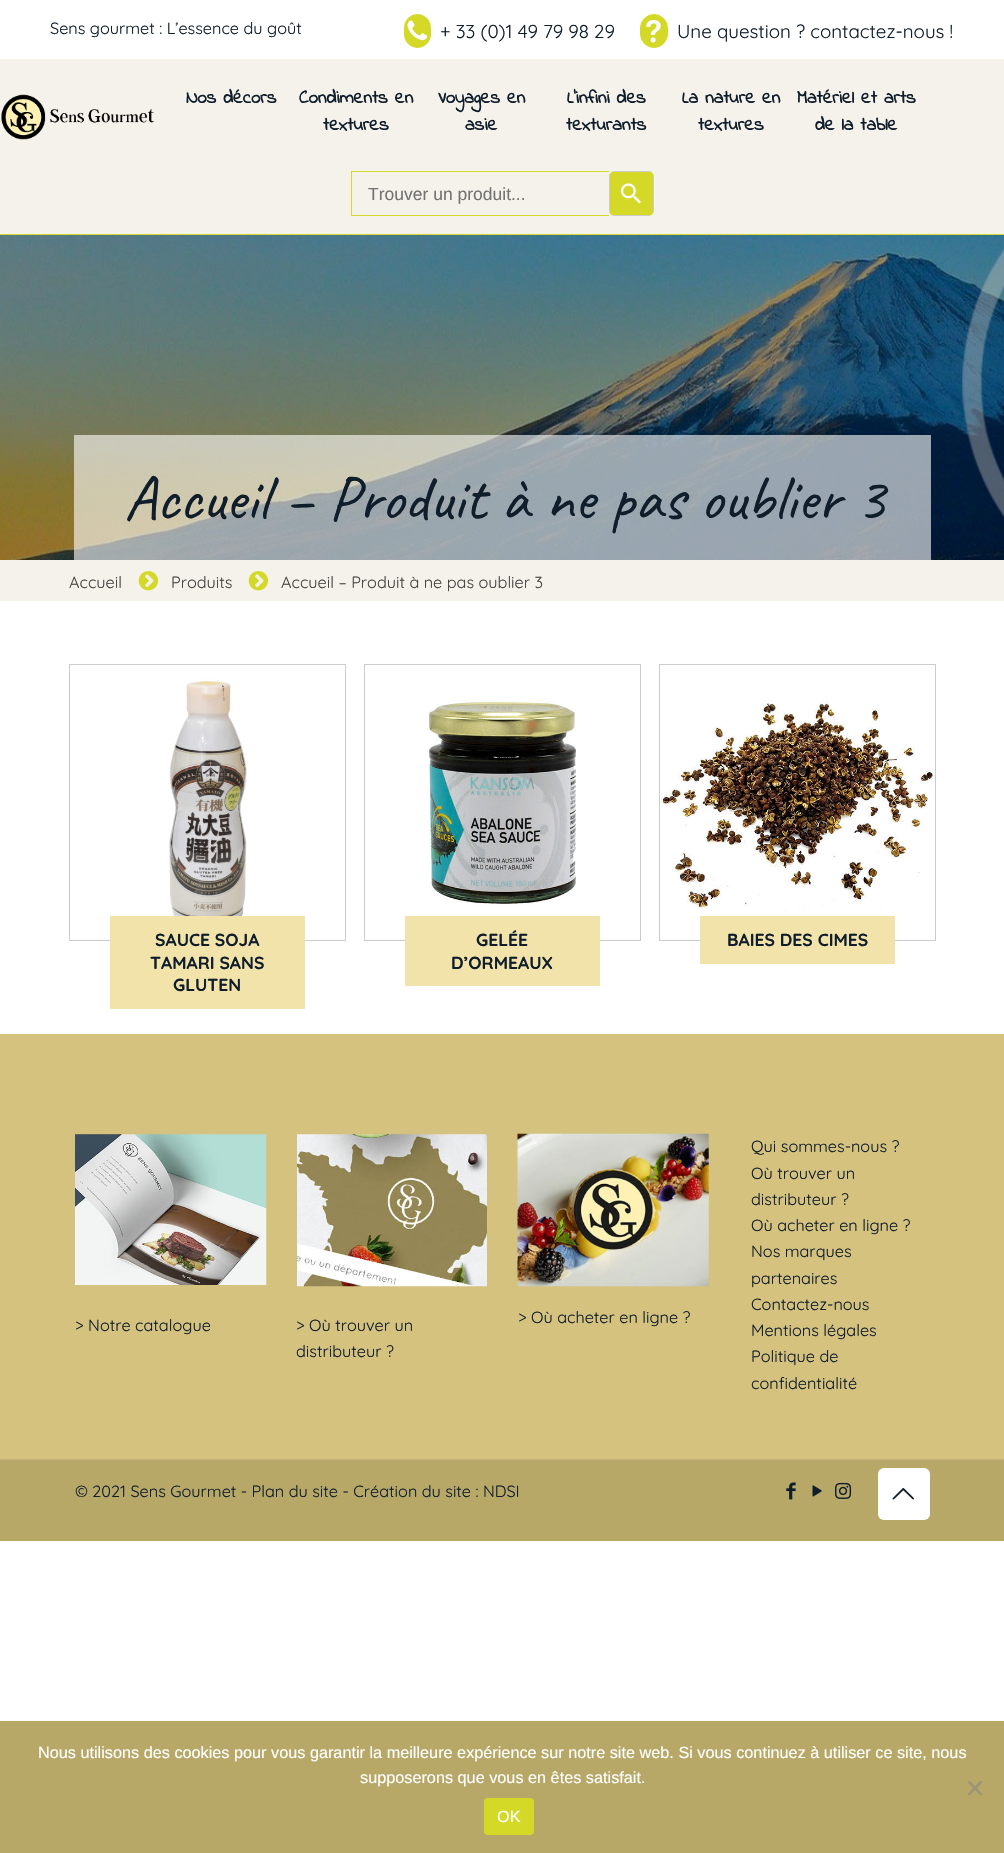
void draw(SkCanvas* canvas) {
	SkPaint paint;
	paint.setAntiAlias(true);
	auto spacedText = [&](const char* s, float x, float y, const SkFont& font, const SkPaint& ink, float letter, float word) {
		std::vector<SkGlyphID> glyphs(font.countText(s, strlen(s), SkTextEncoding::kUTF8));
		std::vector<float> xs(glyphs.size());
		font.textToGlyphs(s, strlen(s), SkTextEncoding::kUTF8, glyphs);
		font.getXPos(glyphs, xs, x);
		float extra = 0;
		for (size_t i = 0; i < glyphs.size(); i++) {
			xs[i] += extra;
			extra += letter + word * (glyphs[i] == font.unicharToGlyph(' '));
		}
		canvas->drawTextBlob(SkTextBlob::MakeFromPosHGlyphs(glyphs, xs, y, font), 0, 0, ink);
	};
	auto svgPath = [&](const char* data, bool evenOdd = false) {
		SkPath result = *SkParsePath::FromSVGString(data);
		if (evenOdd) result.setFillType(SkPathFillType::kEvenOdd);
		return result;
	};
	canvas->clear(0xffffffff);
	paint.setColor(0xfff4f2ea);
	canvas->drawRect(SkRect::MakeXYWH(0, 59, 1004, 542), paint);
	SkFont f1(fontMgr->matchFamilyStyle("Quicksand", SkFontStyle::Normal()), 16.25);
	f1.setSubpixel(true);
	paint.setColor(0xff101d2b);
	canvas->drawString("Sens gourmet : L’essence du goût", 50, 34, f1, paint);
	paint.setColor(0xffd4d927);
	canvas->drawRoundRect(SkRect::MakeXYWH(404.5, 14.5, 26, 33), 13, 13, paint);
	paint.setStroke(true);
	paint.setStrokeWidth(1);
	canvas->drawRoundRect(SkRect::MakeXYWH(404.5, 14.5, 26, 33), 13, 13, paint);
	canvas->drawImageRect(SkImages::DeferredFromEncodedData(SkData::MakeFromFileName("img1.png")), SkRect::MakeXYWH(407, 20, 21, 21), SkSamplingOptions());
	SkFont f2(fontMgr->matchFamilyStyle("Quicksand", SkFontStyle::Normal()), 18.75);
	f2.setSubpixel(true);
	paint.setStroke(false);
	paint.setColor(0xff101d2b);
	canvas->drawString("+ 33 (0)1 49 79 98 29", 440, 38, f2, paint);
	paint.setColor(0xffd4d927);
	canvas->drawRoundRect(SkRect::MakeXYWH(640.5, 14.5, 27, 33), 13.5, 13.5, paint);
	paint.setStroke(true);
	canvas->drawRoundRect(SkRect::MakeXYWH(640.5, 14.5, 27, 33), 13.5, 13.5, paint);
	canvas->drawImageRect(SkImages::DeferredFromEncodedData(SkData::MakeFromFileName("img2.png")), SkRect::MakeXYWH(646, 20, 15, 23), SkSamplingOptions());
	paint.setStroke(false);
	paint.setColor(0xff101d2b);
	canvas->drawString("Une question ? contactez-nous !", 677, 38, f2, paint);
	paint.setColor(0xffd4d927);
	canvas->drawRect(SkRect::MakeXYWH(0, 234, 1004, 1), paint);
	canvas->drawImageRect(SkImages::DeferredFromEncodedData(SkData::MakeFromFileName("img3.png")), SkRect::MakeXYWH(1, 94, 153, 46), SkSamplingOptions());
	SkFont f3(fontMgr->matchFamilyStyle("Indie Flower", SkFontStyle::Bold()), 18.75);
	f3.setSubpixel(true);
	paint.setColor(0xff101d2b);
	canvas->drawString("Nos décors", 186, 103, f3, paint);
	canvas->drawString("Condiments en", 299, 103, f3, paint);
	canvas->drawString("textures", 323, 130, f3, paint);
	canvas->drawString("Voyages en", 438, 103, f3, paint);
	canvas->drawString("asie", 465, 130, f3, paint);
	canvas->drawString("L’infini des", 567, 103, f3, paint);
	canvas->drawString("texturants", 566, 130, f3, paint);
	canvas->drawString("La nature en", 682, 103, f3, paint);
	canvas->drawString("textures", 698, 130, f3, paint);
	canvas->drawString("Matériel et arts", 797, 103, f3, paint);
	canvas->drawString("de la table", 815, 130, f3, paint);
	paint.setColor(0xffd4d927);
	canvas->drawRect(SkRect::MakeXYWH(351, 171, 258, 1), paint);
	canvas->drawRect(SkRect::MakeXYWH(351, 215, 258, 1), paint);
	canvas->drawRect(SkRect::MakeXYWH(351, 171, 1, 45), paint);
	SkFont f4(fontMgr->matchFamilyStyle("Liberation Sans", SkFontStyle::Normal()), 17.5);
	f4.setSubpixel(true);
	paint.setColor(0xff727272);
	canvas->drawString("Trouver un produit...", 368, 200, f4, paint);
	paint.setColor(0xffd4d927);
	canvas->drawRoundRect(SkRect::MakeXYWH(609, 171, 45, 45), 6, 6, paint);
	paint.setColor(0xffcccccc);
	canvas->drawPath(svgPath("M609 177V210C609 211 609 212 610 213V174ZM615 171L612 172H651L648 171ZM654 177L653 174V213C654 212 654 211 654 210ZM648 216L651 215H612C613 216 614 216 615 216Z", true), paint);
	canvas->drawImageRect(SkImages::DeferredFromEncodedData(SkData::MakeFromFileName("img4.png")), SkRect::MakeXYWH(620, 183, 21, 21), SkSamplingOptions());
	canvas->drawImageRect(SkImages::DeferredFromEncodedData(SkData::MakeFromFileName("img5.png")), SkRect::MakeXYWH(0, 235, 1004, 325), SkSamplingOptions());
	paint.setColor(0x99ffffff);
	canvas->drawRect(SkRect::MakeXYWH(74, 435, 857, 125), paint);
	SkFont f5(fontMgr->matchFamilyStyle("Caveat", SkFontStyle::Normal()), 63.75);
	f5.setSubpixel(true);
	paint.setColor(0xff101d2b);
	spacedText("Accueil – Produit à ne pas oublier 3", 124, 519, f5, paint, 0, 0.5);
	paint.setColor(0xff444444);
	canvas->drawString("Accueil", 69, 588, f1, paint);
	canvas->drawImageRect(SkImages::DeferredFromEncodedData(SkData::MakeFromFileName("img6.png")), SkRect::MakeXYWH(138, 571, 20, 20), SkSamplingOptions());
	canvas->drawString("Produits", 171, 588, f1, paint);
	canvas->drawImageRect(SkImages::DeferredFromEncodedData(SkData::MakeFromFileName("img6.png")), SkRect::MakeXYWH(248, 571, 20, 20), SkSamplingOptions());
	canvas->drawString("Accueil – Produit à ne pas oublier 3", 281, 588, f1, paint);
	paint.setStroke(true);
	paint.setColor(0xffcccccc);
	canvas->drawRect(SkRect::MakeXYWH(69.5, 664.5, 276, 276), paint);
	canvas->drawImageRect(SkImages::DeferredFromEncodedData(SkData::MakeFromFileName("img7.png")), SkRect::MakeXYWH(169, 678, 78, 238), SkSamplingOptions());
	paint.setStroke(false);
	paint.setColor(0xfff2e3aa);
	canvas->drawRect(SkRect::MakeXYWH(110, 916, 195, 93), paint);
	SkFont f6(fontMgr->matchFamilyStyle("Quicksand", SkFontStyle::Bold()), 17.5);
	f6.setSubpixel(true);
	paint.setColor(0xff101d2b);
	canvas->drawString("SAUCE SOJA", 155, 946, f6, paint);
	canvas->drawString("TAMARI SANS", 150, 969, f6, paint);
	canvas->drawString("GLUTEN", 173, 991, f6, paint);
	paint.setStroke(true);
	paint.setColor(0xffcccccc);
	canvas->drawRect(SkRect::MakeXYWH(364.5, 664.5, 276, 276), paint);
	canvas->drawImageRect(SkImages::DeferredFromEncodedData(SkData::MakeFromFileName("img8.png")), SkRect::MakeXYWH(427, 700, 149, 206), SkSamplingOptions());
	paint.setStroke(false);
	paint.setColor(0xfff2e3aa);
	canvas->drawRect(SkRect::MakeXYWH(405, 916, 195, 70), paint);
	paint.setColor(0xff101d2b);
	canvas->drawString("GELÉE", 476, 946, f6, paint);
	canvas->drawString("D’ORMEAUX", 451, 969, f6, paint);
	paint.setStroke(true);
	paint.setColor(0xffcccccc);
	canvas->drawRect(SkRect::MakeXYWH(659.5, 664.5, 276, 276), paint);
	canvas->drawImageRect(SkImages::DeferredFromEncodedData(SkData::MakeFromFileName("img9.png")), SkRect::MakeXYWH(660, 696, 274, 215), SkSamplingOptions());
	paint.setStroke(false);
	paint.setColor(0xfff2e3aa);
	canvas->drawRect(SkRect::MakeXYWH(700, 916, 195, 48), paint);
	paint.setColor(0xff101d2b);
	canvas->drawString("BAIES DES CIMES", 727, 946, f6, paint);
	paint.setColor(0xffd4c27e);
	canvas->drawRect(SkRect::MakeXYWH(0, 1034, 1004, 425), paint);
	canvas->drawImageRect(SkImages::DeferredFromEncodedData(SkData::MakeFromFileName("img10.png")), SkRect::MakeXYWH(75, 1133, 192, 152), SkSamplingOptions());
	paint.setColor(0xff101d2b);
	canvas->drawString("> Notre catalogue", 75, 1331, f1, paint);
	canvas->drawImageRect(SkImages::DeferredFromEncodedData(SkData::MakeFromFileName("img11.png")), SkRect::MakeXYWH(296, 1133, 192, 154), SkSamplingOptions());
	canvas->drawString("> Où trouver un", 296, 1331, f1, paint);
	canvas->drawString("distributeur ?", 296, 1357, f1, paint);
	canvas->drawImageRect(SkImages::DeferredFromEncodedData(SkData::MakeFromFileName("img12.png")), SkRect::MakeXYWH(517, 1133, 192, 154), SkSamplingOptions());
	canvas->drawString("> Où acheter en ligne ?", 518, 1323, f1, paint);
	canvas->drawString("Qui sommes-nous ?", 751, 1152, f1, paint);
	canvas->drawString("Où trouver un", 751, 1179, f1, paint);
	canvas->drawString("distributeur ?", 751, 1205, f1, paint);
	canvas->drawString("Où acheter en ligne ?", 751, 1231, f1, paint);
	canvas->drawString("Nos marques", 751, 1257, f1, paint);
	canvas->drawString("partenaires", 751, 1284, f1, paint);
	canvas->drawString("Contactez-nous", 751, 1310, f1, paint);
	canvas->drawString("Mentions légales", 751, 1336, f1, paint);
	canvas->drawString("Politique de", 751, 1362, f1, paint);
	canvas->drawString("confidentialité", 751, 1389, f1, paint);
	paint.setColor(0xffb8a868);
	canvas->drawRect(SkRect::MakeXYWH(0, 1460, 1004, 81), paint);
	paint.setColor(0xffbfb177);
	canvas->drawRect(SkRect::MakeXYWH(0, 1459, 1004, 1), paint);
	paint.setColor(0xff101d2b);
	canvas->drawString("© 2021 Sens Gourmet - Plan du site - Création du site : NDSI", 75, 1497, f1, paint);
	canvas->drawImageRect(SkImages::DeferredFromEncodedData(SkData::MakeFromFileName("img13.png")), SkRect::MakeXYWH(786, 1482, 10, 18), SkSamplingOptions());
	canvas->drawImageRect(SkImages::DeferredFromEncodedData(SkData::MakeFromFileName("img14.png")), SkRect::MakeXYWH(812, 1485, 10, 12), SkSamplingOptions());
	canvas->drawImageRect(SkImages::DeferredFromEncodedData(SkData::MakeFromFileName("img15.png")), SkRect::MakeXYWH(835, 1482, 17, 17), SkSamplingOptions());
	paint.setColor(0xffffffff);
	canvas->drawRoundRect(SkRect::MakeXYWH(878, 1468, 52, 52), 6, 6, paint);
	canvas->drawImageRect(SkImages::DeferredFromEncodedData(SkData::MakeFromFileName("img16.png")), SkRect::MakeXYWH(892, 1488, 22, 12), SkSamplingOptions());
	paint.setColor(0xffb8a868);
	canvas->drawRect(SkRect::MakeXYWH(0, 1721, 1004, 132), paint);
	SkFont f7(fontMgr->matchFamilyStyle("Liberation Sans", SkFontStyle::Normal()), 16.25);
	f7.setSubpixel(true);
	paint.setColor(0xffffffff);
	canvas->drawString("Nous utilisons des cookies pour vous garantir la meilleure expérience sur notre site web. Si vous continuez à utiliser ce site, nous", 38, 1758, f7, paint);
	canvas->drawString("supposerons que vous en êtes satisfait.", 360, 1783, f7, paint);
	paint.setColor(0xff9c9474);
	canvas->drawPath(svgPath("M980.5 1780.5L982.5 1782.5L969.5 1795.5L967.5 1794Z"), paint);
	canvas->drawPath(svgPath("M967.5 1782.5L969.5 1780.5L982.5 1794L980.5 1795.5Z"), paint);
	paint.setColor(0xffd4d927);
	canvas->drawRoundRect(SkRect::MakeXYWH(484, 1798, 50, 37), 4, 4, paint);
	paint.setColor(0xffffffff);
	canvas->drawString("OK", 497, 1822, f7, paint);
}
